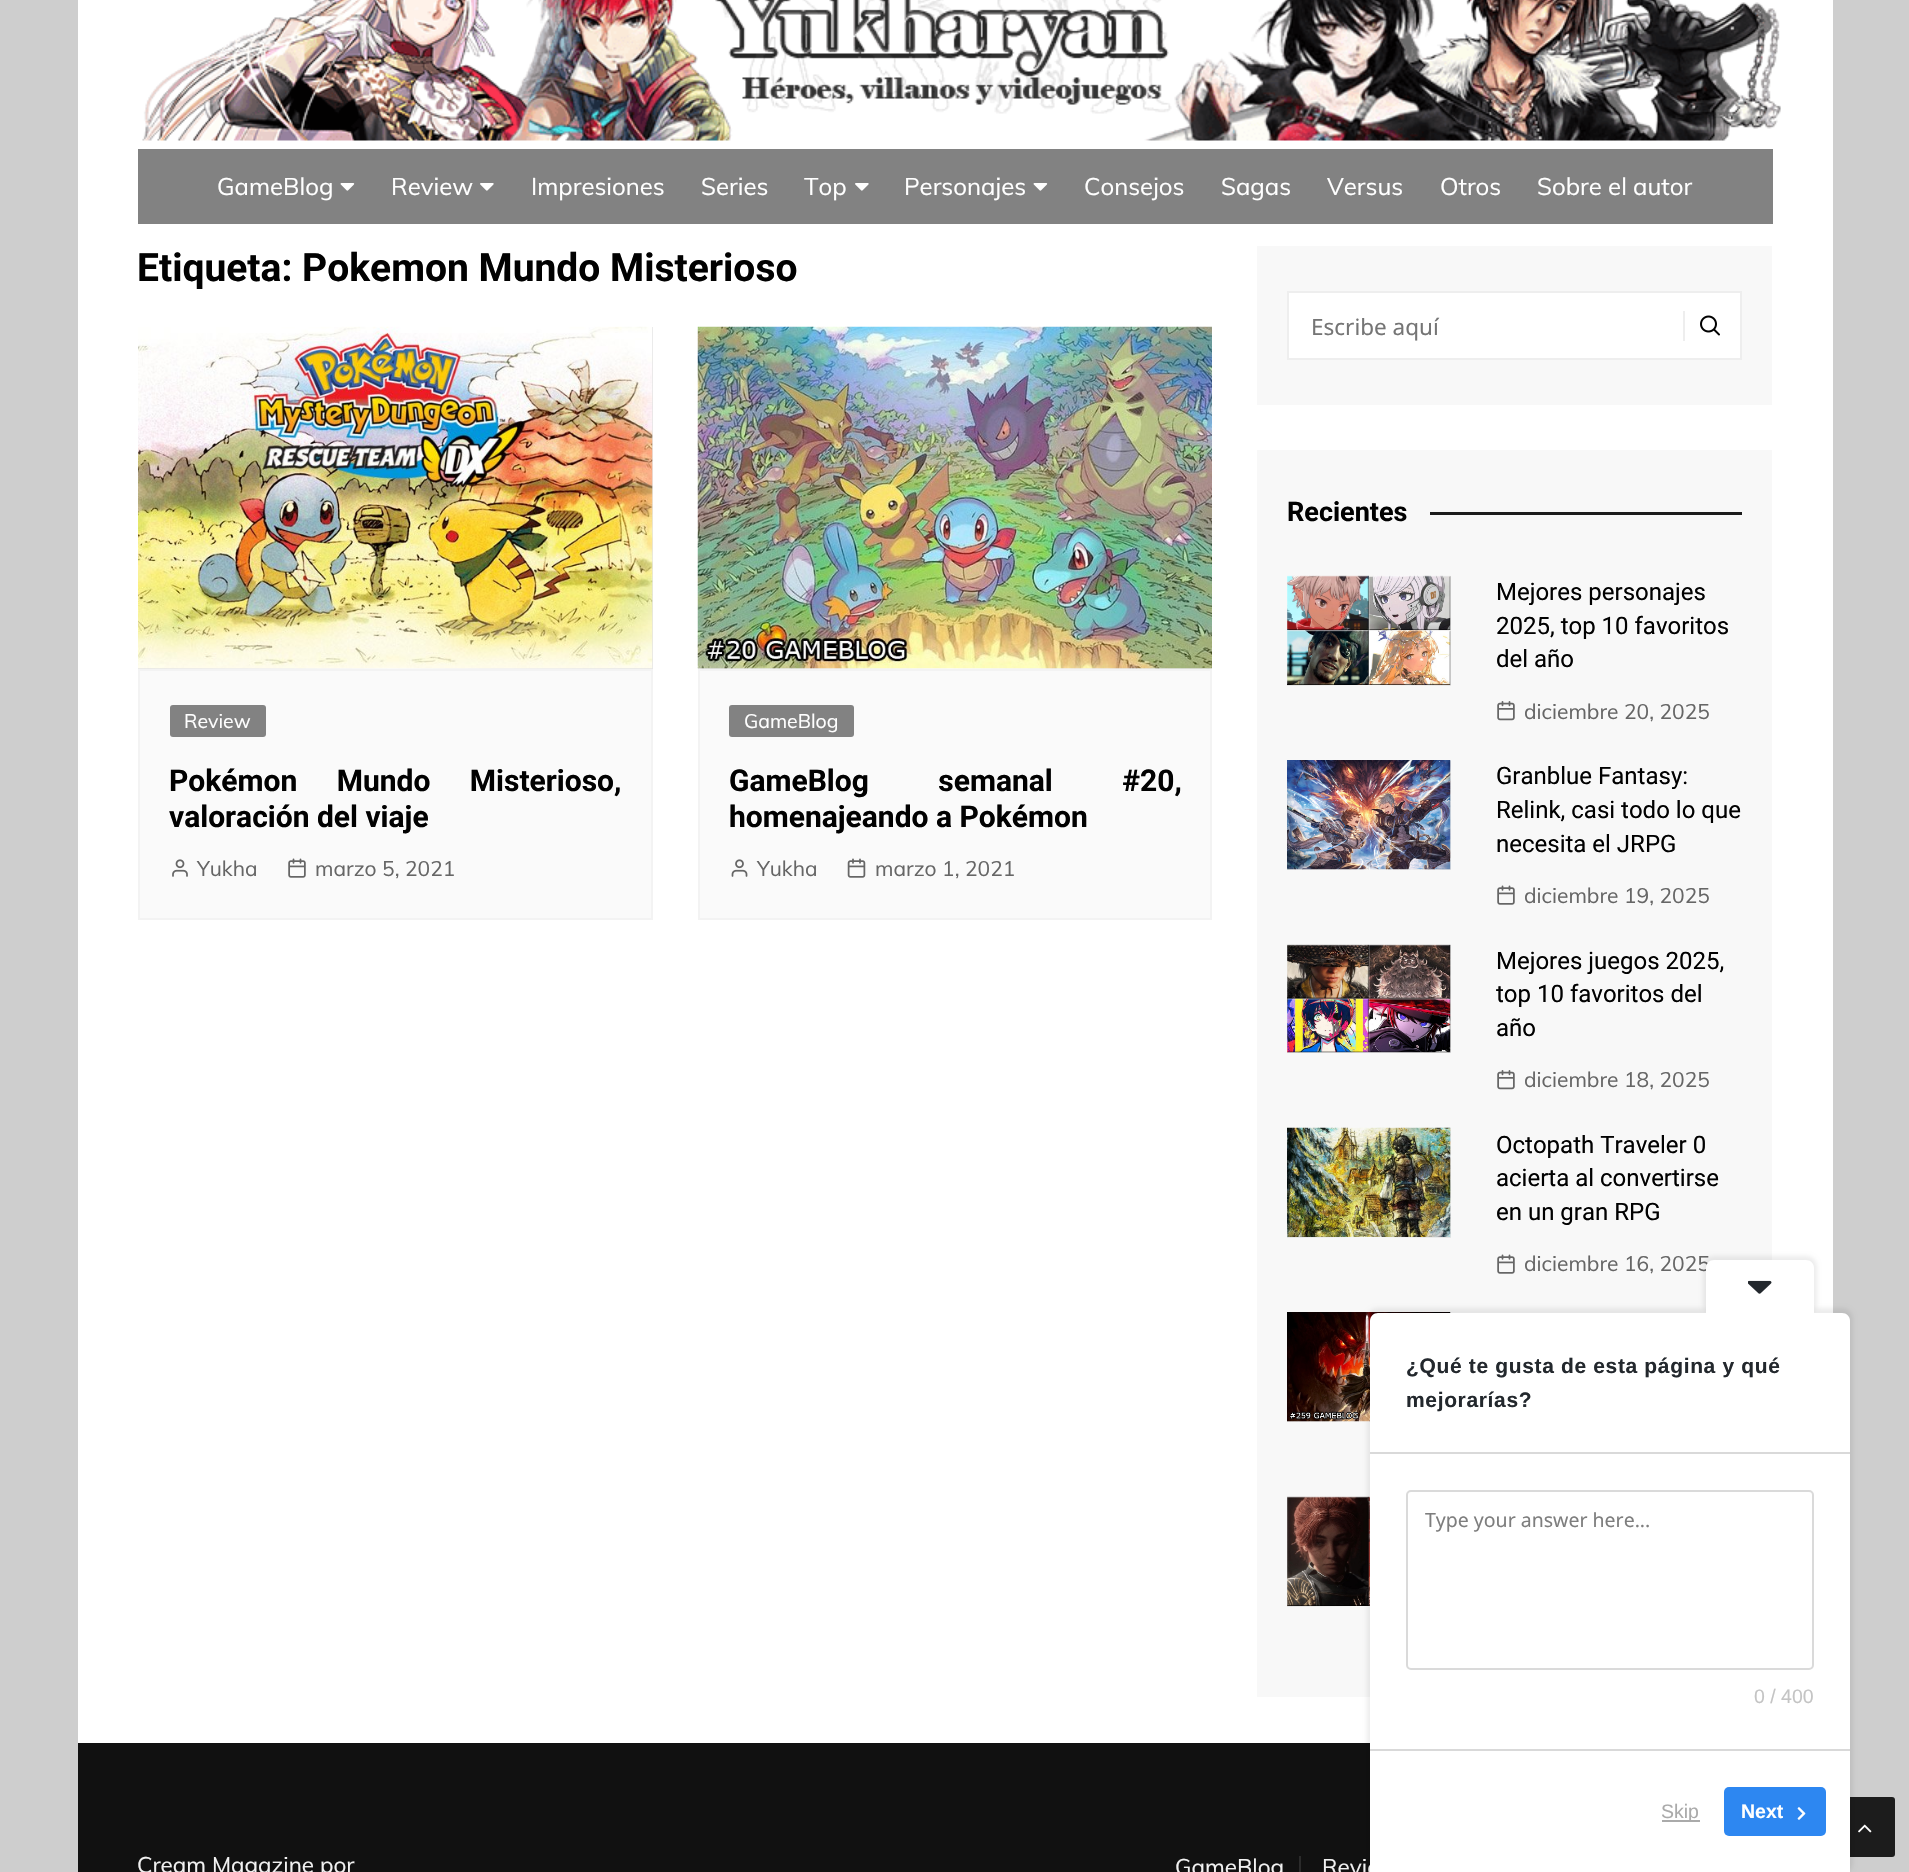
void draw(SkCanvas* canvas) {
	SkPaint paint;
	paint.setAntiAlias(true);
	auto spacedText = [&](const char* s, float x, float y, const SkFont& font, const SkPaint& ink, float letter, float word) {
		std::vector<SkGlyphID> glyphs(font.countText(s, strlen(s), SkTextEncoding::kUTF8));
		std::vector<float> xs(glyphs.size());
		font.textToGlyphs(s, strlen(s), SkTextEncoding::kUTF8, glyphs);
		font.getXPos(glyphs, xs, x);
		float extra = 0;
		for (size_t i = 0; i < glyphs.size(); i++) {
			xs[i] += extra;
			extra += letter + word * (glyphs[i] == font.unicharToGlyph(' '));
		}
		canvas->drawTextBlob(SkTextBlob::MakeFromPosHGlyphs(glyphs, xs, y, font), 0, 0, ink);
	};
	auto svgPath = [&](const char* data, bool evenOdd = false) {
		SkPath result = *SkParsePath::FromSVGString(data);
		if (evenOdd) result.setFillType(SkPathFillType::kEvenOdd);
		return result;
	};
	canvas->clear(0xffcecece);
	paint.setColor(0xffffffff);
	canvas->drawRect(SkRect::MakeXYWH(78, 0, 1755, 1743), paint);
	canvas->drawImageRect(SkImages::DeferredFromEncodedData(SkData::MakeFromFileName("img1.png")), SkRect::MakeXYWH(142, 0, 1639, 141), SkSamplingOptions());
	paint.setColor(0xff828282);
	canvas->drawRect(SkRect::MakeXYWH(138, 149, 1635, 75), paint);
	SkFont f1(fontMgr->matchFamilyStyle("Muli", SkFontStyle::Normal()), 24);
	f1.setSubpixel(true);
	paint.setColor(0xffffffff);
	canvas->drawString("GameBlog", 217, 195, f1, paint);
	canvas->drawImageRect(SkImages::DeferredFromEncodedData(SkData::MakeFromFileName("img2.png")), SkRect::MakeXYWH(340, 183, 15, 8), SkSamplingOptions());
	canvas->drawString("Review", 391, 195, f1, paint);
	canvas->drawImageRect(SkImages::DeferredFromEncodedData(SkData::MakeFromFileName("img3.png")), SkRect::MakeXYWH(480, 183, 14, 8), SkSamplingOptions());
	canvas->drawString("Impresiones", 531, 195, f1, paint);
	canvas->drawString("Series", 701, 195, f1, paint);
	canvas->drawString("Top", 804, 195, f1, paint);
	canvas->drawImageRect(SkImages::DeferredFromEncodedData(SkData::MakeFromFileName("img3.png")), SkRect::MakeXYWH(855, 183, 14, 8), SkSamplingOptions());
	canvas->drawString("Personajes", 904, 195, f1, paint);
	canvas->drawImageRect(SkImages::DeferredFromEncodedData(SkData::MakeFromFileName("img2.png")), SkRect::MakeXYWH(1033, 183, 15, 8), SkSamplingOptions());
	canvas->drawString("Consejos", 1084, 195, f1, paint);
	canvas->drawString("Sagas", 1221, 195, f1, paint);
	canvas->drawString("Versus", 1327, 195, f1, paint);
	canvas->drawString("Otros", 1440, 195, f1, paint);
	canvas->drawString("Sobre el autor", 1537, 195, f1, paint);
	SkFont f2(fontMgr->matchFamilyStyle("Roboto", SkFontStyle::Bold()), 39);
	f2.setSubpixel(true);
	paint.setColor(0xff010101);
	canvas->drawString("Etiqueta: Pokemon Mundo Misterioso", 137, 281, f2, paint);
	paint.setColor(0xffe5e5e5);
	canvas->drawRect(SkRect::MakeXYWH(648, 327, 5, 342), paint);
	{
		const SkColor colors[] = {0xffe4e4e4, 0xfffafafa, 0xffe4e4e4};
		const float stops[] = {0, 0.5, 1};
		const SkPoint ends[] = {{138, 498}, {647, 498}};
		paint.setShader(SkGradientShader::MakeLinear(ends, colors, stops, 3, SkTileMode::kClamp));
		paint.setAlpha(255);
	}
	canvas->drawRect(SkRect::MakeXYWH(138, 668, 510, 1), paint);
	canvas->drawImageRect(SkImages::DeferredFromEncodedData(SkData::MakeFromFileName("img4.png")), SkRect::MakeXYWH(138, 326, 515, 343), SkSamplingOptions());
	paint.setShader(nullptr);
	paint.setColor(0xfffafafa);
	canvas->drawRect(SkRect::MakeXYWH(139, 670, 513, 249), paint);
	paint.setStroke(true);
	paint.setStrokeWidth(2);
	paint.setColor(0xfff3f3f3);
	canvas->drawRect(SkRect::MakeXYWH(139, 670, 513, 249), paint);
	paint.setStroke(false);
	paint.setColor(0xff828282);
	canvas->drawRoundRect(SkRect::MakeXYWH(170, 705, 96, 32), 3, 3, paint);
	SkFont f3(fontMgr->matchFamilyStyle("Muli", SkFontStyle::Normal()), 19.5);
	f3.setSubpixel(true);
	paint.setColor(0xffffffff);
	canvas->drawString("Review", 184, 728, f3, paint);
	SkFont f4(fontMgr->matchFamilyStyle("Roboto", SkFontStyle::Bold()), 30);
	f4.setSubpixel(true);
	paint.setColor(0xff010101);
	spacedText("Pokémon Mundo Misterioso,", 169, 791, f4, paint, 0, 32);
	canvas->drawString("valoración del viaje", 169, 827, f4, paint);
	canvas->drawImageRect(SkImages::DeferredFromEncodedData(SkData::MakeFromFileName("img5.png")), SkRect::MakeXYWH(172, 859, 16, 18), SkSamplingOptions());
	SkFont f5(fontMgr->matchFamilyStyle("Muli", SkFontStyle::Normal()), 21);
	f5.setSubpixel(true);
	paint.setColor(0xff666666);
	canvas->drawString("Yukha", 197, 876, f5, paint);
	canvas->drawImageRect(SkImages::DeferredFromEncodedData(SkData::MakeFromFileName("img6.png")), SkRect::MakeXYWH(288, 858, 18, 20), SkSamplingOptions());
	canvas->drawString("marzo 5, 2021", 315, 876, f5, paint);
	paint.setColor(0xffe5e5e5);
	canvas->drawRect(SkRect::MakeXYWH(1208, 668, 4, 1), paint);
	{
		const SkColor colors[] = {0xffe4e4e4, 0xfffafafa, 0xffe4e4e4};
		const float stops[] = {0, 0.5, 1};
		const SkPoint ends[] = {{698, 498}, {1207, 498}};
		paint.setShader(SkGradientShader::MakeLinear(ends, colors, stops, 3, SkTileMode::kClamp));
		paint.setAlpha(255);
	}
	canvas->drawRect(SkRect::MakeXYWH(698, 668, 510, 1), paint);
	canvas->drawImageRect(SkImages::DeferredFromEncodedData(SkData::MakeFromFileName("img7.png")), SkRect::MakeXYWH(697, 326, 515, 343), SkSamplingOptions());
	paint.setShader(nullptr);
	paint.setColor(0xfffafafa);
	canvas->drawRect(SkRect::MakeXYWH(699, 670, 512, 249), paint);
	paint.setStroke(true);
	paint.setColor(0xfff3f3f3);
	canvas->drawRect(SkRect::MakeXYWH(699, 670, 512, 249), paint);
	paint.setStroke(false);
	paint.setColor(0xff828282);
	canvas->drawRoundRect(SkRect::MakeXYWH(729, 705, 125, 32), 3, 3, paint);
	paint.setColor(0xffffffff);
	canvas->drawString("GameBlog", 744, 728, f3, paint);
	paint.setColor(0xff010101);
	spacedText("GameBlog semanal #20,", 729, 791, f4, paint, 0, 62);
	canvas->drawString("homenajeando a Pokémon", 729, 827, f4, paint);
	canvas->drawImageRect(SkImages::DeferredFromEncodedData(SkData::MakeFromFileName("img8.png")), SkRect::MakeXYWH(731, 859, 17, 18), SkSamplingOptions());
	paint.setColor(0xff666666);
	canvas->drawString("Yukha", 757, 876, f5, paint);
	canvas->drawImageRect(SkImages::DeferredFromEncodedData(SkData::MakeFromFileName("img9.png")), SkRect::MakeXYWH(847, 858, 19, 20), SkSamplingOptions());
	canvas->drawString("marzo 1, 2021", 875, 876, f5, paint);
	paint.setColor(0xfff8f8f8);
	canvas->drawRect(SkRect::MakeXYWH(1257, 246, 515, 159), paint);
	paint.setColor(0xffffffff);
	canvas->drawRect(SkRect::MakeXYWH(1288, 292, 453, 67), paint);
	paint.setStroke(true);
	paint.setColor(0xffeeeeee);
	canvas->drawRect(SkRect::MakeXYWH(1288, 292, 453, 67), paint);
	SkFont f6(fontMgr->matchFamilyStyle("Noto Sans", SkFontStyle::Normal()), 22.5);
	f6.setSubpixel(true);
	paint.setStroke(false);
	paint.setColor(0xff757575);
	canvas->drawString("Escribe aquí", 1311, 335, f6, paint);
	paint.setColor(0xffeeeeee);
	canvas->drawRect(SkRect::MakeXYWH(1683, 311, 2, 30), paint);
	canvas->drawImageRect(SkImages::DeferredFromEncodedData(SkData::MakeFromFileName("img10.png")), SkRect::MakeXYWH(1700, 315, 20, 21), SkSamplingOptions());
	paint.setColor(0xfff8f8f8);
	canvas->drawRect(SkRect::MakeXYWH(1257, 450, 515, 1247), paint);
	SkFont f7(fontMgr->matchFamilyStyle("Roboto", SkFontStyle::Bold()), 27);
	f7.setSubpixel(true);
	paint.setColor(0xff010101);
	canvas->drawString("Recientes", 1287, 521, f7, paint);
	paint.setColor(0xff1c1c1c);
	canvas->drawRect(SkRect::MakeXYWH(1430, 512, 312, 3), paint);
	paint.setColor(0xffe5e5e5);
	canvas->drawRect(SkRect::MakeXYWH(1449, 576, 2, 110), paint);
	{
		const SkColor colors[] = {0xffe5e5e5, 0xfffafafa, 0xffe5e5e5};
		const float stops[] = {0, 0.5, 1};
		const SkPoint ends[] = {{1287, 631}, {1449, 631}};
		paint.setShader(SkGradientShader::MakeLinear(ends, colors, stops, 3, SkTileMode::kClamp));
		paint.setAlpha(255);
	}
	canvas->drawRect(SkRect::MakeXYWH(1287, 685, 162, 1), paint);
	canvas->drawImageRect(SkImages::DeferredFromEncodedData(SkData::MakeFromFileName("img11.png")), SkRect::MakeXYWH(1287, 575, 164, 110), SkSamplingOptions());
	SkFont f8(fontMgr->matchFamilyStyle("Roboto", SkFontStyle::Normal()), 24);
	f8.setSubpixel(true);
	paint.setShader(nullptr);
	paint.setColor(0xff010101);
	canvas->drawString("Mejores personajes", 1496, 600, f8, paint);
	canvas->drawString("2025, top 10 favoritos", 1496, 634, f8, paint);
	canvas->drawString("del año", 1496, 667, f8, paint);
	canvas->drawImageRect(SkImages::DeferredFromEncodedData(SkData::MakeFromFileName("img12.png")), SkRect::MakeXYWH(1497, 701, 18, 20), SkSamplingOptions());
	paint.setColor(0xff666666);
	canvas->drawString("diciembre 20, 2025", 1524, 719, f5, paint);
	paint.setColor(0xffe5e5e5);
	canvas->drawRect(SkRect::MakeXYWH(1449, 761, 2, 109), paint);
	{
		const SkColor colors[] = {0xffe5e5e5, 0xfffafafa, 0xffe5e5e5};
		const float stops[] = {0, 0.5, 1};
		const SkPoint ends[] = {{1287, 815}, {1449, 815}};
		paint.setShader(SkGradientShader::MakeLinear(ends, colors, stops, 3, SkTileMode::kClamp));
		paint.setAlpha(255);
	}
	canvas->drawRect(SkRect::MakeXYWH(1287, 869, 162, 1), paint);
	canvas->drawImageRect(SkImages::DeferredFromEncodedData(SkData::MakeFromFileName("img13.png")), SkRect::MakeXYWH(1287, 760, 164, 110), SkSamplingOptions());
	paint.setShader(nullptr);
	paint.setColor(0xff010101);
	canvas->drawString("Granblue Fantasy:", 1496, 784, f8, paint);
	canvas->drawString("Relink, casi todo lo que", 1496, 818, f8, paint);
	canvas->drawString("necesita el JRPG", 1496, 852, f8, paint);
	canvas->drawImageRect(SkImages::DeferredFromEncodedData(SkData::MakeFromFileName("img14.png")), SkRect::MakeXYWH(1497, 885, 18, 20), SkSamplingOptions());
	paint.setColor(0xff666666);
	canvas->drawString("diciembre 19, 2025", 1524, 903, f5, paint);
	paint.setColor(0xffe5e5e5);
	canvas->drawRect(SkRect::MakeXYWH(1449, 945, 2, 108), paint);
	{
		const SkColor colors[] = {0xffe5e5e5, 0xfffafafa, 0xffe5e5e5};
		const float stops[] = {0, 0.5, 1};
		const SkPoint ends[] = {{1287, 999}, {1449, 999}};
		paint.setShader(SkGradientShader::MakeLinear(ends, colors, stops, 3, SkTileMode::kClamp));
		paint.setAlpha(255);
	}
	canvas->drawRect(SkRect::MakeXYWH(1287, 1052, 162, 1), paint);
	canvas->drawImageRect(SkImages::DeferredFromEncodedData(SkData::MakeFromFileName("img15.png")), SkRect::MakeXYWH(1287, 944, 164, 109), SkSamplingOptions());
	paint.setShader(nullptr);
	paint.setColor(0xff010101);
	canvas->drawString("Mejores juegos 2025,", 1496, 969, f8, paint);
	canvas->drawString("top 10 favoritos del", 1496, 1002, f8, paint);
	canvas->drawString("año", 1496, 1036, f8, paint);
	canvas->drawImageRect(SkImages::DeferredFromEncodedData(SkData::MakeFromFileName("img12.png")), SkRect::MakeXYWH(1497, 1070, 18, 20), SkSamplingOptions());
	paint.setColor(0xff666666);
	canvas->drawString("diciembre 18, 2025", 1524, 1087, f5, paint);
	paint.setColor(0xffe5e5e5);
	canvas->drawRect(SkRect::MakeXYWH(1449, 1128, 2, 110), paint);
	{
		const SkColor colors[] = {0xffe5e5e5, 0xfffafafa, 0xffe5e5e5};
		const float stops[] = {0, 0.5, 1};
		const SkPoint ends[] = {{1287, 1183}, {1449, 1183}};
		paint.setShader(SkGradientShader::MakeLinear(ends, colors, stops, 3, SkTileMode::kClamp));
		paint.setAlpha(255);
	}
	canvas->drawRect(SkRect::MakeXYWH(1287, 1237, 162, 1), paint);
	canvas->drawImageRect(SkImages::DeferredFromEncodedData(SkData::MakeFromFileName("img16.png")), SkRect::MakeXYWH(1287, 1127, 164, 110), SkSamplingOptions());
	paint.setShader(nullptr);
	paint.setColor(0xff010101);
	canvas->drawString("Octopath Traveler 0", 1496, 1153, f8, paint);
	canvas->drawString("acierta al convertirse", 1496, 1186, f8, paint);
	canvas->drawString("en un gran RPG", 1496, 1220, f8, paint);
	canvas->drawImageRect(SkImages::DeferredFromEncodedData(SkData::MakeFromFileName("img14.png")), SkRect::MakeXYWH(1497, 1254, 18, 20), SkSamplingOptions());
	paint.setColor(0xff666666);
	canvas->drawString("diciembre 16, 2025", 1524, 1271, f5, paint);
	{
		const SkColor colors[] = {0xffe5e5e5, 0xfffafafa, 0xffe5e5e5};
		const float stops[] = {0, 0.5, 1};
		const SkPoint ends[] = {{1287, 1367}, {1449, 1367}};
		paint.setShader(SkGradientShader::MakeLinear(ends, colors, stops, 3, SkTileMode::kClamp));
		paint.setAlpha(255);
	}
	canvas->drawRect(SkRect::MakeXYWH(1287, 1421, 64, 1), paint);
	canvas->drawImageRect(SkImages::DeferredFromEncodedData(SkData::MakeFromFileName("img17.png")), SkRect::MakeXYWH(1287, 1312, 164, 110), SkSamplingOptions());
	{
		const SkColor colors[] = {0xffe5e5e5, 0xfffafafa, 0xffe5e5e5};
		const float stops[] = {0, 0.5, 1};
		const SkPoint ends[] = {{1287, 1552}, {1449, 1552}};
		paint.setShader(SkGradientShader::MakeLinear(ends, colors, stops, 3, SkTileMode::kClamp));
		paint.setAlpha(255);
	}
	canvas->drawRect(SkRect::MakeXYWH(1287, 1606, 64, 1), paint);
	canvas->drawImageRect(SkImages::DeferredFromEncodedData(SkData::MakeFromFileName("img18.png")), SkRect::MakeXYWH(1287, 1496, 83, 110), SkSamplingOptions());
	paint.setShader(nullptr);
	paint.setColor(0xff111111);
	canvas->drawRect(SkRect::MakeXYWH(78, 1743, 1292, 129), paint);
	SkFont f9(fontMgr->matchFamilyStyle("Muli", SkFontStyle::Normal()), 22.5);
	f9.setSubpixel(true);
	paint.setColor(0xfff1f1f1);
	canvas->drawString("Cream Magazine por", 137, 1873, f9, paint);
	paint.setColor(0xff2b2b2b);
	canvas->drawRect(SkRect::MakeXYWH(1299, 1856, 2, 16), paint);
	paint.setColor(0xfff1f1f1);
	canvas->drawString("GameBlog", 1175, 1875, f9, paint);
	canvas->drawString("Revie", 1322, 1875, f9, paint);
	paint.setColor(0xff1c1c1c);
	canvas->drawRoundRect(SkRect::MakeXYWH(1835, 1797, 60, 60), 3, 3, paint);
	canvas->drawImageRect(SkImages::DeferredFromEncodedData(SkData::MakeFromFileName("img21.png")), SkRect::MakeXYWH(1858, 1824, 14, 9), SkSamplingOptions());
	paint.setColor(0x12000000);
	paint.setMaskFilter(SkMaskFilter::MakeBlur(kNormal_SkBlurStyle, 2));
	canvas->drawRoundRect(SkRect::MakeXYWH(1367, 1308, 486, 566), 11, 11, paint);
	paint.setMaskFilter(nullptr);
	paint.setColor(0xffffffff);
	canvas->drawPath(svgPath("M1378 1313H1842C1846.5 1313 1850 1316.5 1850 1321V1872H1370V1321C1370 1316.5 1373.5 1313 1378 1313Z"), paint);
	canvas->save();
	canvas->clipPath(svgPath("M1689.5 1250H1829.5L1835 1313H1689.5Z"), true);
	paint.setColor(0x12000000);
	paint.setMaskFilter(SkMaskFilter::MakeBlur(kNormal_SkBlurStyle, 2));
	canvas->drawRoundRect(SkRect::MakeXYWH(1703, 1256, 114, 58), 11, 11, paint);
	paint.setMaskFilter(nullptr);
	canvas->restore();
	paint.setColor(0xffffffff);
	canvas->drawPath(svgPath("M1714 1260H1806C1810.5 1260 1814 1263.5 1814 1268V1313H1706V1268C1706 1263.5 1709.5 1260 1714 1260Z"), paint);
	canvas->drawImageRect(SkImages::DeferredFromEncodedData(SkData::MakeFromFileName("img19.png")), SkRect::MakeXYWH(1748, 1280, 24, 14), SkSamplingOptions());
	SkFont f10(fontMgr->matchFamilyStyle("Liberation Sans", SkFontStyle::Bold()), 21);
	f10.setSubpixel(true);
	paint.setColor(0xff23282d);
	spacedText("¿Qué te gusta de esta página y qué", 1406, 1373, f10, paint, 0.65, 0);
	spacedText("mejorarías?", 1406, 1407, f10, paint, 0.65, 0);
	paint.setColor(0xffd9d9d9);
	canvas->drawRect(SkRect::MakeXYWH(1370, 1452, 480, 2), paint);
	canvas->drawRect(SkRect::MakeXYWH(1370, 1749, 480, 2), paint);
	paint.setStroke(true);
	paint.setColor(0xffdadada);
	canvas->drawRoundRect(SkRect::MakeXYWH(1407, 1491, 406, 178), 4, 4, paint);
	SkFont f11(fontMgr->matchFamilyStyle("Noto Sans", SkFontStyle::Normal()), 19.5);
	f11.setSubpixel(true);
	paint.setStroke(false);
	paint.setColor(0xff7e7e7e);
	canvas->drawString("Type your answer here...", 1425, 1527, f11, paint);
	SkFont f12(fontMgr->matchFamilyStyle("Liberation Sans", SkFontStyle::Normal()), 19.5);
	f12.setSubpixel(true);
	paint.setColor(0xffc4c4c4);
	canvas->drawString("0 / 400", 1754, 1703, f12, paint);
	paint.setColor(0xffaaaaaa);
	canvas->drawRect(SkRect::MakeXYWH(1662, 1820, 38, 2), paint);
	canvas->drawString("Skip", 1661, 1818, f12, paint);
	paint.setColor(0xff2d87f1);
	canvas->drawRoundRect(SkRect::MakeXYWH(1724, 1787, 102, 49), 5, 5, paint);
	SkFont f13(fontMgr->matchFamilyStyle("Liberation Sans", SkFontStyle::Bold()), 19.5);
	f13.setSubpixel(true);
	paint.setColor(0xffffffff);
	canvas->drawString("Next", 1741, 1818, f13, paint);
	canvas->drawImageRect(SkImages::DeferredFromEncodedData(SkData::MakeFromFileName("img20.png")), SkRect::MakeXYWH(1797, 1807, 9, 13), SkSamplingOptions());
}
